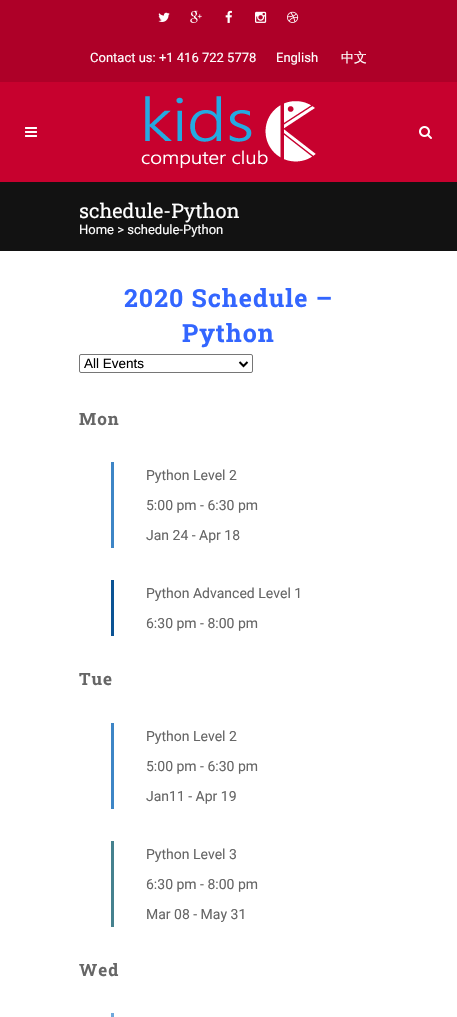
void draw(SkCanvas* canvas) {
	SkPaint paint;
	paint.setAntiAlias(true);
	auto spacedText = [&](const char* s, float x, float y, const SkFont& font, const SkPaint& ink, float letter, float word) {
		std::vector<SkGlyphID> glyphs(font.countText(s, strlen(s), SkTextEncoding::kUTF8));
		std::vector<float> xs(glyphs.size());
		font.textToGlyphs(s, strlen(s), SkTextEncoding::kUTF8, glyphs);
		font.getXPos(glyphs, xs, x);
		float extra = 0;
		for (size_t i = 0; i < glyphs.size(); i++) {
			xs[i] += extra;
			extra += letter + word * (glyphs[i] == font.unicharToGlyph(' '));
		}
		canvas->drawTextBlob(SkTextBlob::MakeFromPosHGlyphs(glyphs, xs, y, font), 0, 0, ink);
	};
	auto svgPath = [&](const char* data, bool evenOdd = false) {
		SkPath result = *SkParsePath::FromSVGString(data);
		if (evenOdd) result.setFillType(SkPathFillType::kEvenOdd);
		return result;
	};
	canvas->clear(0xffffffff);
	paint.setColor(0xffae0028);
	canvas->drawRect(SkRect::MakeXYWH(0, 0, 457, 82), paint);
	canvas->drawImageRect(SkImages::DeferredFromEncodedData(SkData::MakeFromFileName("img1.png")), SkRect::MakeXYWH(158, 12, 12, 10), SkSamplingOptions());
	canvas->drawImageRect(SkImages::DeferredFromEncodedData(SkData::MakeFromFileName("img2.png")), SkRect::MakeXYWH(190, 10, 12, 13), SkSamplingOptions());
	canvas->drawImageRect(SkImages::DeferredFromEncodedData(SkData::MakeFromFileName("img3.png")), SkRect::MakeXYWH(225, 10, 7, 13), SkSamplingOptions());
	canvas->drawImageRect(SkImages::DeferredFromEncodedData(SkData::MakeFromFileName("img4.png")), SkRect::MakeXYWH(255, 11, 12, 12), SkSamplingOptions());
	canvas->drawImageRect(SkImages::DeferredFromEncodedData(SkData::MakeFromFileName("img5.png")), SkRect::MakeXYWH(287, 11, 12, 12), SkSamplingOptions());
	SkFont f1(fontMgr->matchFamilyStyle("Roboto", SkFontStyle::Normal()), 13);
	f1.setSubpixel(true);
	paint.setColor(0xffffffff);
	canvas->drawString("Contact us: +1 416 722 5778", 90, 62, f1, paint);
	canvas->drawString("English", 276, 62, f1, paint);
	SkFont f2(fontMgr->matchFamilyStyle("WenQuanYi Zen Hei", SkFontStyle(500, SkFontStyle::kNormal_Width, SkFontStyle::kUpright_Slant)), 13);
	f2.setSubpixel(true);
	canvas->drawString("中文", 341, 62, f2, paint);
	paint.setColor(0xffc7012e);
	canvas->drawRect(SkRect::MakeXYWH(0, 82, 457, 100), paint);
	canvas->drawImageRect(SkImages::DeferredFromEncodedData(SkData::MakeFromFileName("img6.png")), SkRect::MakeXYWH(25, 127, 12, 10), SkSamplingOptions());
	canvas->drawImageRect(SkImages::DeferredFromEncodedData(SkData::MakeFromFileName("img7.png")), SkRect::MakeXYWH(141, 96, 175, 72), SkSamplingOptions());
	canvas->drawImageRect(SkImages::DeferredFromEncodedData(SkData::MakeFromFileName("img8.png")), SkRect::MakeXYWH(419, 126, 13, 13), SkSamplingOptions());
	paint.setColor(0xff121212);
	canvas->drawRect(SkRect::MakeXYWH(0, 182, 457, 69), paint);
	SkFont f3(fontMgr->matchFamilyStyle("Roboto Slab", SkFontStyle::Normal()), 20);
	f3.setSubpixel(true);
	paint.setColor(0xffffffff);
	canvas->drawString("schedule-Python", 79, 218, f3, paint);
	canvas->drawString("Home > schedule-Python", 79, 234, f1, paint);
	SkFont f4(fontMgr->matchFamilyStyle("Roboto Slab", SkFontStyle::Bold()), 25);
	f4.setSubpixel(true);
	paint.setColor(0xff3366ff);
	spacedText("2020 Schedule –", 124, 307, f4, paint, 1, 0);
	spacedText("Python", 182, 342, f4, paint, 1, 0);
	paint.setStroke(true);
	paint.setStrokeWidth(1);
	paint.setColor(0xff767676);
	canvas->drawRoundRect(SkRect::MakeXYWH(79.5, 354.5, 173, 18), 1.5, 1.5, paint);
	paint.setStrokeWidth(2);
	paint.setColor(0xff000000);
	canvas->drawPath(svgPath("M239.5 362L243.5 366L247.5 362"), paint);
	SkFont f5(fontMgr->matchFamilyStyle("Liberation Sans", SkFontStyle::Normal()), 13.5);
	f5.setSubpixel(true);
	paint.setStroke(false);
	canvas->drawString("All Events", 84, 368, f5, paint);
	SkFont f6(fontMgr->matchFamilyStyle("Roboto Slab", SkFontStyle::Bold()), 17);
	f6.setSubpixel(true);
	paint.setColor(0xff666666);
	spacedText("Mon", 79, 425, f6, paint, 1, 0);
	paint.setColor(0xff3d85c6);
	canvas->drawRect(SkRect::MakeXYWH(111, 462, 3, 86), paint);
	SkFont f7(fontMgr->matchFamilyStyle("Roboto", SkFontStyle::Normal()), 14);
	f7.setSubpixel(true);
	paint.setColor(0xff666666);
	canvas->drawString("Python Level 2", 146, 480, f7, paint);
	canvas->drawString("5:00 pm - 6:30 pm", 146, 510, f7, paint);
	canvas->drawString("Jan 24 - Apr 18", 146, 540, f7, paint);
	paint.setColor(0xff0b5394);
	canvas->drawRect(SkRect::MakeXYWH(111, 580, 3, 56), paint);
	paint.setColor(0xff666666);
	canvas->drawString("Python Advanced Level 1", 146, 598, f7, paint);
	canvas->drawString("6:30 pm - 8:00 pm", 146, 628, f7, paint);
	spacedText("Tue", 79, 685, f6, paint, 1, 0);
	paint.setColor(0xff3d85c6);
	canvas->drawRect(SkRect::MakeXYWH(111, 723, 3, 86), paint);
	paint.setColor(0xff666666);
	canvas->drawString("Python Level 2", 146, 741, f7, paint);
	canvas->drawString("5:00 pm - 6:30 pm", 146, 771, f7, paint);
	canvas->drawString("Jan11 - Apr 19", 146, 801, f7, paint);
	paint.setColor(0xff45818e);
	canvas->drawRect(SkRect::MakeXYWH(111, 841, 3, 86), paint);
	paint.setColor(0xff666666);
	canvas->drawString("Python Level 3", 146, 859, f7, paint);
	canvas->drawString("6:30 pm - 8:00 pm", 146, 889, f7, paint);
	canvas->drawString("Mar 08 - May 31", 146, 919, f7, paint);
	spacedText("Wed", 79, 976, f6, paint, 1, 0);
	paint.setColor(0xff6fa8dc);
	canvas->drawRect(SkRect::MakeXYWH(111, 1013, 3, 4), paint);
}
